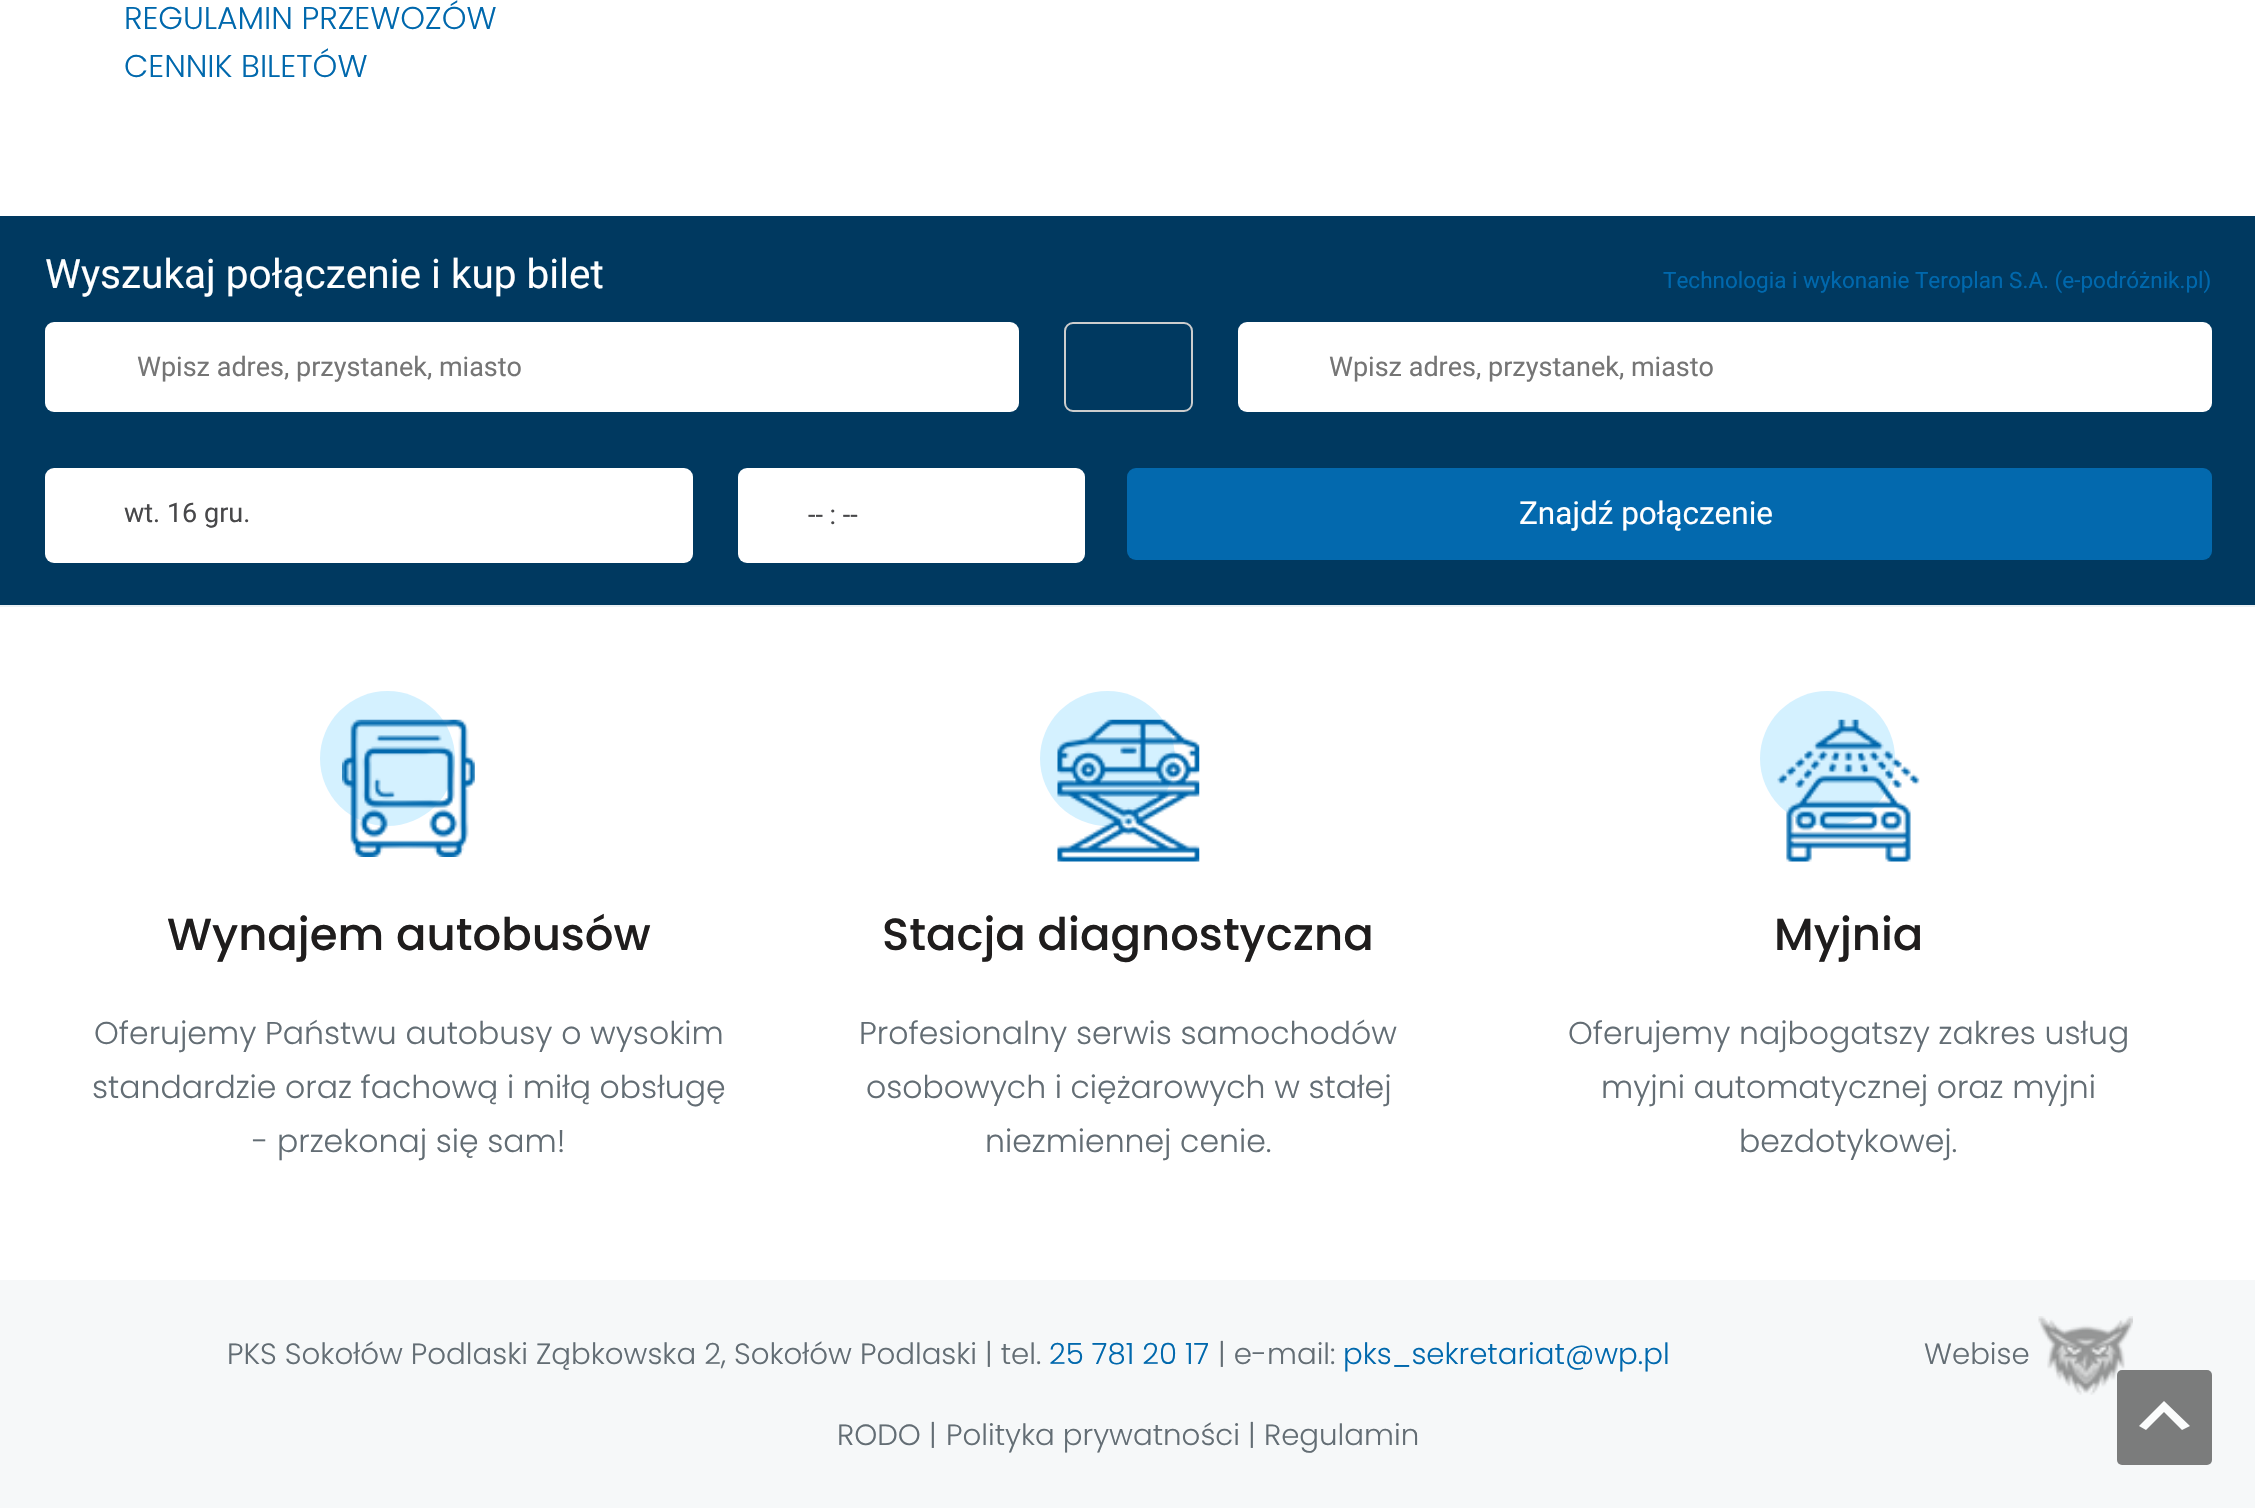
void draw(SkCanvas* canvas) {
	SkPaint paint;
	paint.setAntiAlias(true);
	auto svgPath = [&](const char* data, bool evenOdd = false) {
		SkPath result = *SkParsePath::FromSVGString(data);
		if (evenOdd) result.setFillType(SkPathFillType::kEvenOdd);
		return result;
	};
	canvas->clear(0xffffffff);
	SkFont f1(fontMgr->matchFamilyStyle("Poppins", SkFontStyle(300, SkFontStyle::kNormal_Width, SkFontStyle::kUpright_Slant)), 31.5);
	f1.setSubpixel(true);
	paint.setColor(0xff0068ad);
	canvas->drawString("REGULAMIN PRZEWOZÓW", 124, 29, f1, paint);
	canvas->drawString("CENNIK BILETÓW", 124, 77, f1, paint);
	paint.setColor(0xff003960);
	canvas->drawRect(SkRect::MakeXYWH(0, 216, 2255, 389), paint);
	SkFont f2(fontMgr->matchFamilyStyle("Roboto", SkFontStyle::Normal()), 40.5);
	f2.setSubpixel(true);
	paint.setColor(0xffffffff);
	canvas->drawString("Wyszukaj połączenie i kup bilet", 45, 288, f2, paint);
	SkFont f3(fontMgr->matchFamilyStyle("Roboto", SkFontStyle::Normal()), 22.5);
	f3.setSubpixel(true);
	paint.setColor(0xff0068ad);
	canvas->drawString("Technologia i wykonanie Teroplan S.A. (e-podróżnik.pl)", 1663, 288, f3, paint);
	paint.setColor(0xffffffff);
	canvas->drawRoundRect(SkRect::MakeXYWH(45, 322, 974, 90), 9, 9, paint);
	SkFont f4(fontMgr->matchFamilyStyle("Roboto", SkFontStyle::Normal()), 27);
	f4.setSubpixel(true);
	paint.setColor(0xff757575);
	canvas->drawString("Wpisz adres, przystanek, miasto", 137, 376, f4, paint);
	paint.setStroke(true);
	paint.setStrokeWidth(2);
	paint.setColor(0xffcccdcd);
	canvas->drawRoundRect(SkRect::MakeXYWH(1065, 323, 127, 88), 8, 8, paint);
	paint.setStroke(false);
	paint.setColor(0xffffffff);
	canvas->drawRoundRect(SkRect::MakeXYWH(1238, 322, 974, 90), 9, 9, paint);
	paint.setColor(0xff757575);
	canvas->drawString("Wpisz adres, przystanek, miasto", 1329, 376, f4, paint);
	paint.setColor(0xffffffff);
	canvas->drawRoundRect(SkRect::MakeXYWH(45, 468, 648, 95), 9, 9, paint);
	paint.setColor(0xff48484a);
	canvas->drawString("wt. 16 gru.", 124, 522, f4, paint);
	paint.setColor(0xffffffff);
	canvas->drawRoundRect(SkRect::MakeXYWH(738, 468, 347, 95), 9, 9, paint);
	paint.setColor(0xff48484a);
	canvas->drawString("-- : --", 808, 524, f4, paint);
	paint.setColor(0xff0369ae);
	canvas->drawRoundRect(SkRect::MakeXYWH(1127, 468, 1085, 92), 9, 9, paint);
	SkFont f5(fontMgr->matchFamilyStyle("Roboto", SkFontStyle::Normal()), 31.5);
	f5.setSubpixel(true);
	paint.setColor(0xffffffff);
	canvas->drawString("Znajdź połączenie", 1519, 524, f5, paint);
	paint.setColor(0xffecf1f4);
	canvas->drawRect(SkRect::MakeXYWH(0, 605, 2255, 2), paint);
	paint.setColor(0xffd4f1ff);
	canvas->drawCircle(387.5, 758.5, 67.5, paint);
	canvas->drawImageRect(SkImages::DeferredFromEncodedData(SkData::MakeFromFileName("img1.png")), SkRect::MakeXYWH(342, 719, 133, 138), SkSamplingOptions());
	SkFont f6(fontMgr->matchFamilyStyle("Poppins", SkFontStyle(500, SkFontStyle::kNormal_Width, SkFontStyle::kUpright_Slant)), 45);
	f6.setSubpixel(true);
	paint.setColor(0xff1f1d1d);
	canvas->drawString("Wynajem autobusów", 167, 950, f6, paint);
	paint.setColor(0xff636d74);
	canvas->drawString("Oferujemy Państwu autobusy o wysokim", 94, 1044, f1, paint);
	canvas->drawString("standardzie oraz fachową i miłą obsługę", 92, 1098, f1, paint);
	canvas->drawString("- przekonaj się sam!", 252, 1152, f1, paint);
	paint.setColor(0xffd4f1ff);
	canvas->drawCircle(1107.5, 758.5, 67.5, paint);
	canvas->drawImageRect(SkImages::DeferredFromEncodedData(SkData::MakeFromFileName("img2.png")), SkRect::MakeXYWH(1057, 719, 143, 143), SkSamplingOptions());
	paint.setColor(0xff1f1d1d);
	canvas->drawString("Stacja diagnostyczna", 882, 950, f6, paint);
	paint.setColor(0xff636d74);
	canvas->drawString("Profesionalny serwis samochodów", 859, 1044, f1, paint);
	canvas->drawString("osobowych i ciężarowych w stałej", 866, 1098, f1, paint);
	canvas->drawString("niezmiennej cenie.", 985, 1152, f1, paint);
	paint.setColor(0xffd4f1ff);
	canvas->drawCircle(1827.5, 758.5, 67.5, paint);
	canvas->drawImageRect(SkImages::DeferredFromEncodedData(SkData::MakeFromFileName("img3.png")), SkRect::MakeXYWH(1777, 719, 143, 143), SkSamplingOptions());
	paint.setColor(0xff1f1d1d);
	canvas->drawString("Myjnia", 1774, 950, f6, paint);
	paint.setColor(0xff636d74);
	canvas->drawString("Oferujemy najbogatszy zakres usług", 1568, 1044, f1, paint);
	canvas->drawString("myjni automatycznej oraz myjni", 1601, 1098, f1, paint);
	canvas->drawString("bezdotykowej.", 1739, 1152, f1, paint);
	paint.setColor(0xfff6f8f9);
	canvas->drawRect(SkRect::MakeXYWH(0, 1280, 2255, 228), paint);
	SkFont f7(fontMgr->matchFamilyStyle("Poppins", SkFontStyle(300, SkFontStyle::kNormal_Width, SkFontStyle::kUpright_Slant)), 29.25);
	f7.setSubpixel(true);
	paint.setColor(0xff636d74);
	canvas->drawString("PKS Sokołów Podlaski Ząbkowska 2, Sokołów Podlaski | tel.", 227, 1364, f7, paint);
	paint.setColor(0xff0068ad);
	canvas->drawString("25 781 20 17", 1049, 1364, f7, paint);
	paint.setColor(0xff636d74);
	canvas->drawString("| e-mail:", 1218, 1364, f7, paint);
	paint.setColor(0xff0068ad);
	canvas->drawString("pks_sekretariat@wp.pl", 1343, 1364, f7, paint);
	paint.setColor(0xff636d74);
	canvas->drawString("Webise", 1924, 1364, f7, paint);
	canvas->drawImageRect(SkImages::DeferredFromEncodedData(SkData::MakeFromFileName("img4.png")), SkRect::MakeXYWH(2038, 1316, 95, 79), SkSamplingOptions());
	canvas->drawString("RODO |", 837, 1445, f7, paint);
	canvas->drawString("Polityka prywatności |", 946, 1445, f7, paint);
	canvas->drawString("Regulamin", 1264, 1445, f7, paint);
	paint.setColor(0x80000000);
	canvas->drawRoundRect(SkRect::MakeXYWH(2117, 1370, 95, 95), 5, 5, paint);
	paint.setColor(0xfffbfcfc);
	canvas->drawPath(svgPath("M2182 1430L2164 1412L2146 1430L2139 1426L2164 1401L2190 1426Z"), paint);
}
